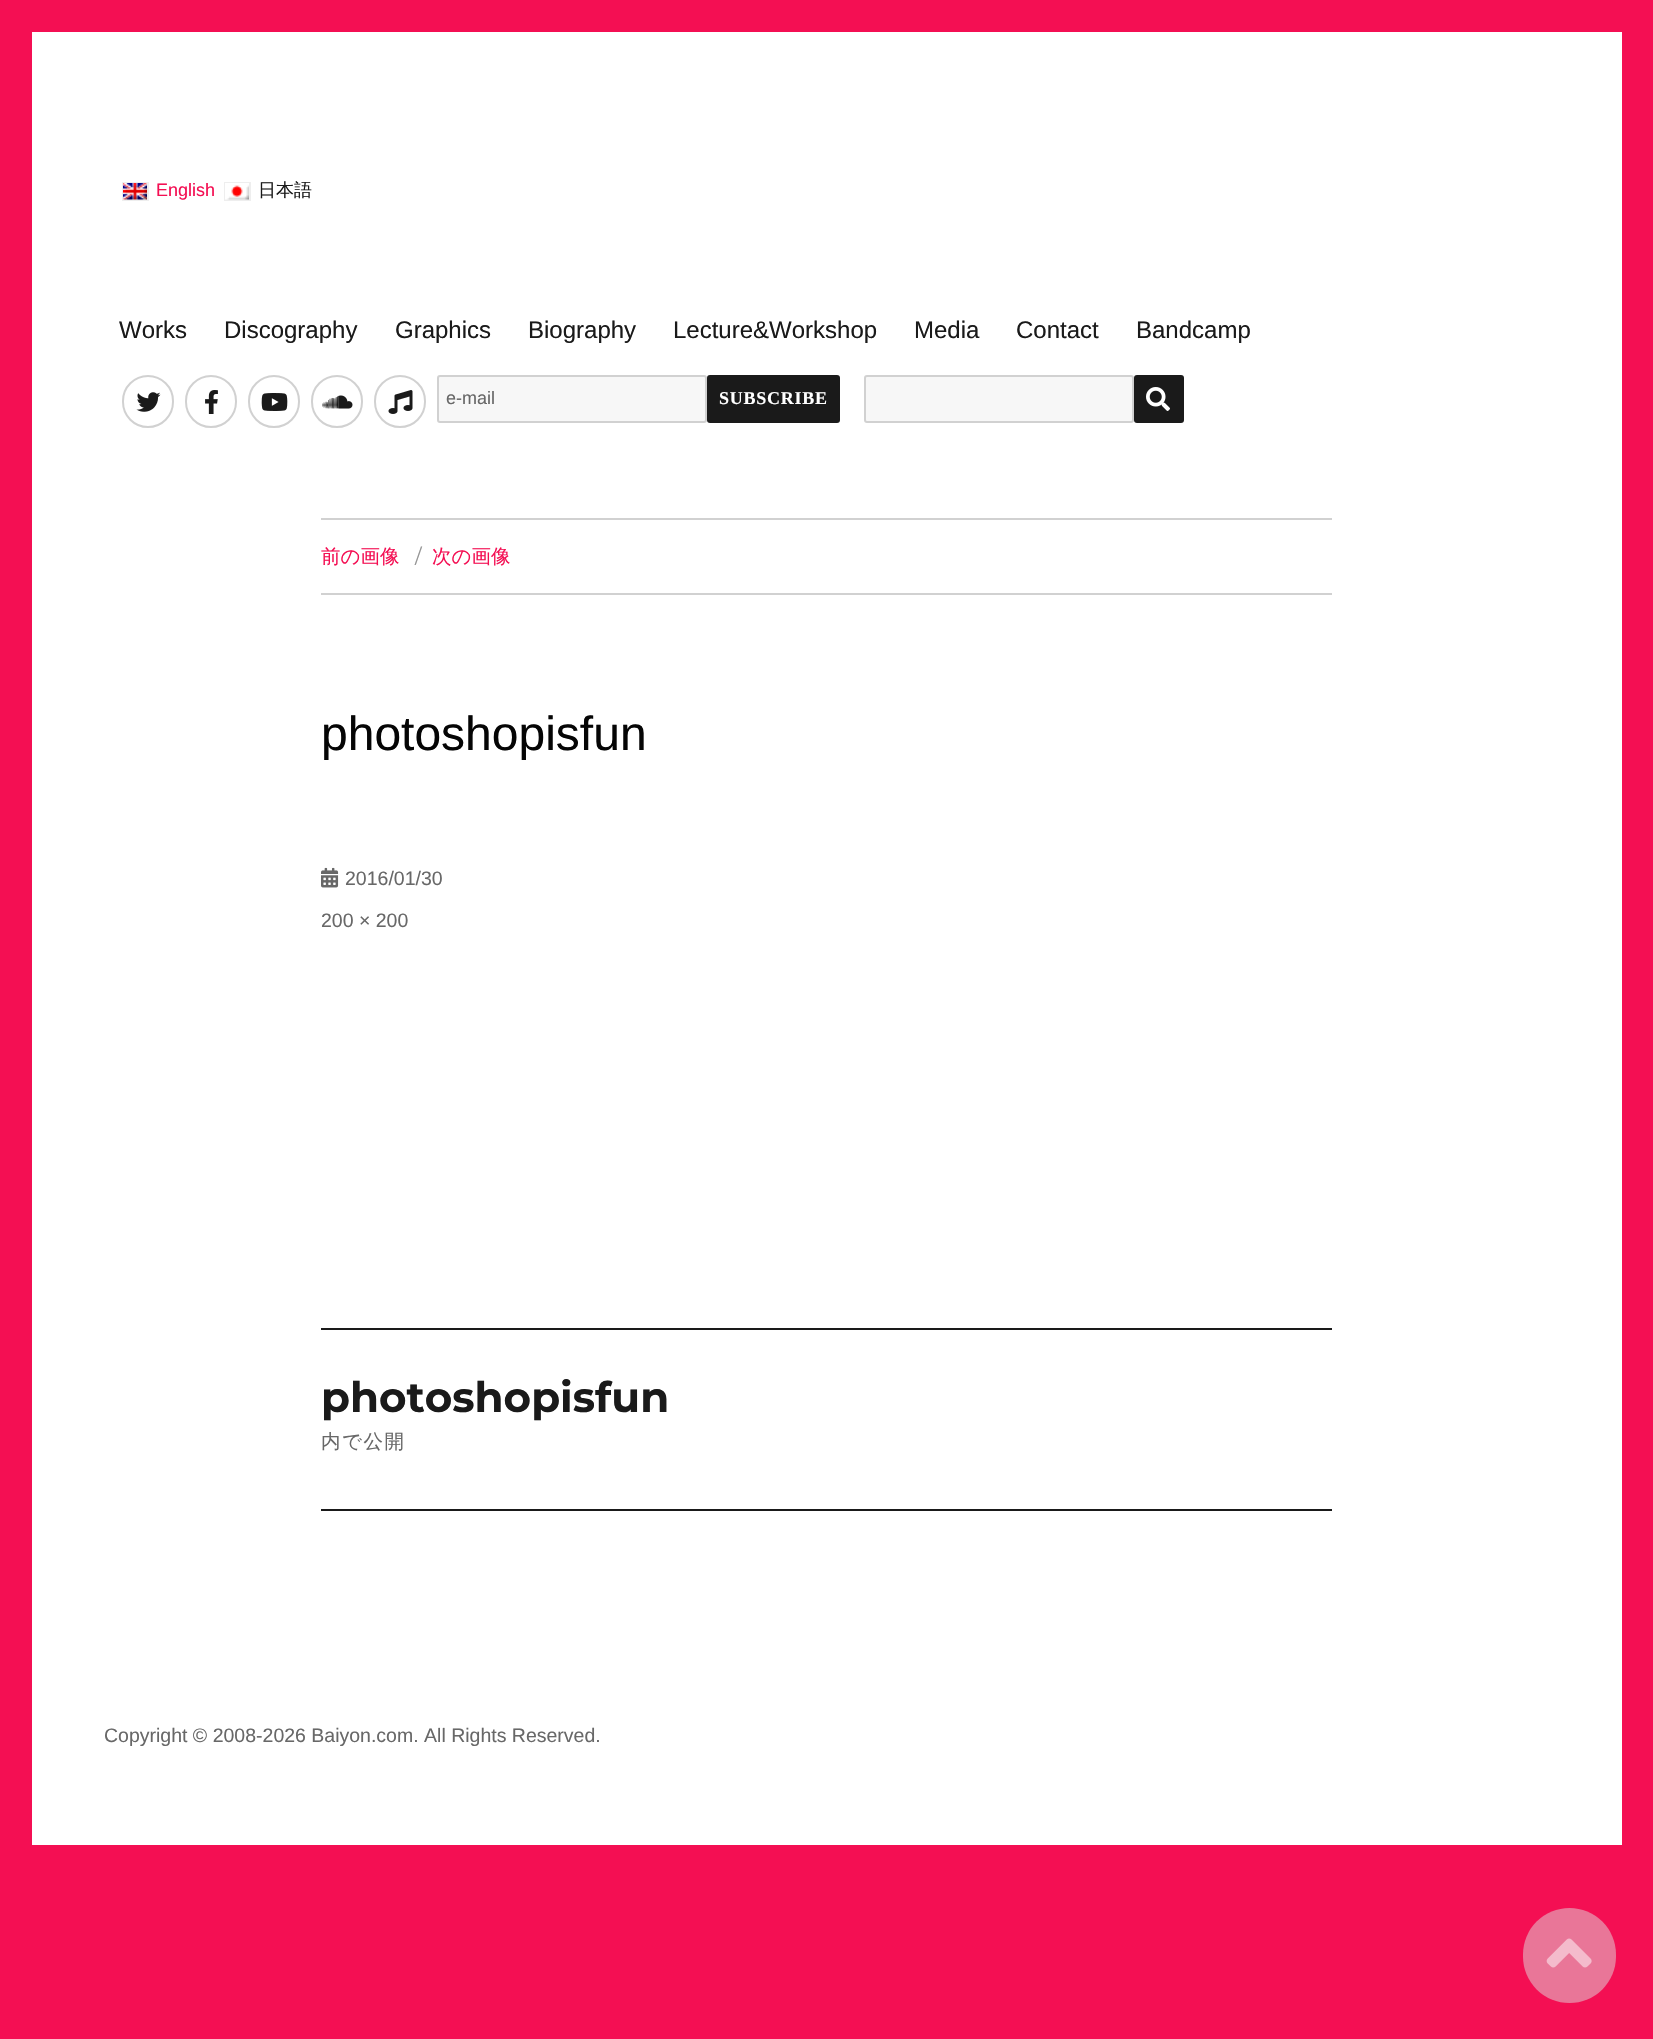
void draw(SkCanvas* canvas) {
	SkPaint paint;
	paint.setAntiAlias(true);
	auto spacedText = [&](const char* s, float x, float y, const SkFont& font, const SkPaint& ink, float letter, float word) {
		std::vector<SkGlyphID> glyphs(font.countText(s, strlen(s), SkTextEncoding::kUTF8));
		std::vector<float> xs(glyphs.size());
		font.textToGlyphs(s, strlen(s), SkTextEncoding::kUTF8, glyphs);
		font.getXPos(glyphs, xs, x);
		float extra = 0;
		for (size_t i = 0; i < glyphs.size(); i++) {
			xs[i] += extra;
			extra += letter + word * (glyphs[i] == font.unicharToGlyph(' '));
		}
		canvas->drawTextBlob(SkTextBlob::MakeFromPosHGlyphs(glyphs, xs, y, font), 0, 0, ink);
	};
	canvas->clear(0xfff40f53);
	paint.setColor(0xffffffff);
	canvas->drawRect(SkRect::MakeXYWH(32, 32, 1590, 1813), paint);
	paint.setStroke(true);
	paint.setStrokeWidth(2);
	paint.setColor(0xffeeeeee);
	canvas->drawRect(SkRect::MakeXYWH(123, 183, 25, 17), paint);
	canvas->drawImageRect(SkImages::DeferredFromEncodedData(SkData::MakeFromFileName("img1.png")), SkRect::MakeXYWH(123, 183, 24, 17), SkSamplingOptions());
	SkFont f1(fontMgr->matchFamilyStyle("Liberation Sans", SkFontStyle::Normal()), 18);
	f1.setSubpixel(true);
	paint.setStroke(false);
	paint.setColor(0xfff40f53);
	canvas->drawString("English", 156, 196, f1, paint);
	paint.setStroke(true);
	paint.setColor(0xffeeeeee);
	canvas->drawRect(SkRect::MakeXYWH(225, 183, 25, 17), paint);
	canvas->drawImageRect(SkImages::DeferredFromEncodedData(SkData::MakeFromFileName("img2.png")), SkRect::MakeXYWH(225, 183, 24, 17), SkSamplingOptions());
	SkFont f2(fontMgr->matchFamilyStyle("WenQuanYi Zen Hei", SkFontStyle(500, SkFontStyle::kNormal_Width, SkFontStyle::kUpright_Slant)), 18);
	f2.setSubpixel(true);
	paint.setStroke(false);
	paint.setColor(0xff1a1a1a);
	canvas->drawString("日本語", 258, 196, f2, paint);
	SkFont f3(fontMgr->matchFamilyStyle("Liberation Sans", SkFontStyle::Normal()), 24);
	f3.setSubpixel(true);
	canvas->drawString("Works", 119, 338, f3, paint);
	canvas->drawString("Discography", 224, 338, f3, paint);
	canvas->drawString("Graphics", 395, 338, f3, paint);
	canvas->drawString("Biography", 528, 338, f3, paint);
	canvas->drawString("Lecture&Workshop", 673, 338, f3, paint);
	canvas->drawString("Media", 914, 338, f3, paint);
	canvas->drawString("Contact", 1016, 338, f3, paint);
	canvas->drawString("Bandcamp", 1136, 338, f3, paint);
	paint.setStroke(true);
	paint.setColor(0xffd1d1d1);
	canvas->drawRoundRect(SkRect::MakeXYWH(123, 376, 50, 51), 25, 25, paint);
	canvas->drawImageRect(SkImages::DeferredFromEncodedData(SkData::MakeFromFileName("img3.png")), SkRect::MakeXYWH(136, 392, 25, 20), SkSamplingOptions());
	canvas->drawRoundRect(SkRect::MakeXYWH(186, 376, 50, 51), 25, 25, paint);
	canvas->drawImageRect(SkImages::DeferredFromEncodedData(SkData::MakeFromFileName("img4.png")), SkRect::MakeXYWH(205, 390, 13, 24), SkSamplingOptions());
	canvas->drawRoundRect(SkRect::MakeXYWH(249, 376, 50, 51), 25, 25, paint);
	canvas->drawImageRect(SkImages::DeferredFromEncodedData(SkData::MakeFromFileName("img5.png")), SkRect::MakeXYWH(261, 393, 27, 18), SkSamplingOptions());
	canvas->drawRoundRect(SkRect::MakeXYWH(312, 376, 50, 51), 25, 25, paint);
	canvas->drawImageRect(SkImages::DeferredFromEncodedData(SkData::MakeFromFileName("img6.png")), SkRect::MakeXYWH(322, 395, 31, 14), SkSamplingOptions());
	canvas->drawRoundRect(SkRect::MakeXYWH(375, 376, 50, 51), 25, 25, paint);
	canvas->drawImageRect(SkImages::DeferredFromEncodedData(SkData::MakeFromFileName("img7.png")), SkRect::MakeXYWH(388, 390, 25, 24), SkSamplingOptions());
	paint.setStroke(false);
	paint.setColor(0xfff7f7f7);
	canvas->drawRoundRect(SkRect::MakeXYWH(438, 376, 268, 46), 2, 2, paint);
	paint.setStroke(true);
	paint.setColor(0xffd1d1d1);
	canvas->drawRoundRect(SkRect::MakeXYWH(438, 376, 268, 46), 2, 2, paint);
	paint.setStroke(false);
	paint.setColor(0xff686868);
	canvas->drawString("e-mail", 446, 404, f1, paint);
	paint.setColor(0xff1a1a1a);
	canvas->drawRoundRect(SkRect::MakeXYWH(707, 375, 133, 48), 3, 3, paint);
	SkFont f4(fontMgr->matchFamilyStyle("Liberation Serif", SkFontStyle::Bold()), 18);
	f4.setSubpixel(true);
	paint.setColor(0xffffffff);
	spacedText("SUBSCRIBE", 719, 404, f4, paint, 0.75, 0);
	paint.setColor(0xfff7f7f7);
	canvas->drawRoundRect(SkRect::MakeXYWH(865, 376, 268, 46), 2, 2, paint);
	paint.setStroke(true);
	paint.setColor(0xffd1d1d1);
	canvas->drawRoundRect(SkRect::MakeXYWH(865, 376, 268, 46), 2, 2, paint);
	paint.setStroke(false);
	paint.setColor(0xff1a1a1a);
	canvas->drawRoundRect(SkRect::MakeXYWH(1134, 375, 50, 48), 3, 3, paint);
	canvas->drawImageRect(SkImages::DeferredFromEncodedData(SkData::MakeFromFileName("img8.png")), SkRect::MakeXYWH(1146, 387, 24, 24), SkSamplingOptions());
	paint.setColor(0xffd1d1d1);
	canvas->drawRect(SkRect::MakeXYWH(321, 518, 1011, 2), paint);
	canvas->drawRect(SkRect::MakeXYWH(321, 593, 1011, 2), paint);
	SkFont f5(fontMgr->matchFamilyStyle("WenQuanYi Zen Hei", SkFontStyle(500, SkFontStyle::kNormal_Width, SkFontStyle::kUpright_Slant)), 19.5);
	f5.setSubpixel(true);
	paint.setColor(0xfff40f53);
	canvas->drawString("前の画像", 321, 563, f5, paint);
	SkFont f6(fontMgr->matchFamilyStyle("Montserrat", SkFontStyle::Normal()), 19.5);
	f6.setSubpixel(true);
	paint.setColor(0xff959595);
	canvas->drawString("/", 415, 563, f6, paint);
	paint.setColor(0xfff40f53);
	canvas->drawString("次の画像", 432, 563, f5, paint);
	SkFont f7(fontMgr->matchFamilyStyle("Liberation Sans", SkFontStyle::Normal()), 48);
	f7.setSubpixel(true);
	paint.setColor(0xff050505);
	canvas->drawString("photoshopisfun", 321, 750, f7, paint);
	canvas->drawImageRect(SkImages::DeferredFromEncodedData(SkData::MakeFromFileName("img9.png")), SkRect::MakeXYWH(321, 867, 18, 21), SkSamplingOptions());
	SkFont f8(fontMgr->matchFamilyStyle("Liberation Sans", SkFontStyle::Normal()), 19.5);
	f8.setSubpixel(true);
	paint.setColor(0xff686868);
	canvas->drawString("2016/01/30", 345, 885, f8, paint);
	canvas->drawString("200 × 200", 321, 927, f8, paint);
	paint.setColor(0xff1a1a1a);
	canvas->drawRect(SkRect::MakeXYWH(321, 1328, 1011, 2), paint);
	canvas->drawRect(SkRect::MakeXYWH(321, 1509, 1011, 2), paint);
	SkFont f9(fontMgr->matchFamilyStyle("Montserrat", SkFontStyle::Bold()), 42);
	f9.setSubpixel(true);
	canvas->drawString("photoshopisfun", 321, 1412, f9, paint);
	paint.setColor(0xff686868);
	spacedText("内で公開", 321, 1448, f5, paint, 1.5, 0);
	canvas->drawString("Copyright © 2008-2026 Baiyon.com. All Rights Reserved.", 104, 1742, f8, paint);
	paint.setColor(0xffe97698);
	canvas->drawRoundRect(SkRect::MakeXYWH(1523, 1908, 93, 95), 46.5, 46.5, paint);
	canvas->drawImageRect(SkImages::DeferredFromEncodedData(SkData::MakeFromFileName("img10.png")), SkRect::MakeXYWH(1546, 1938, 46, 30), SkSamplingOptions());
}
